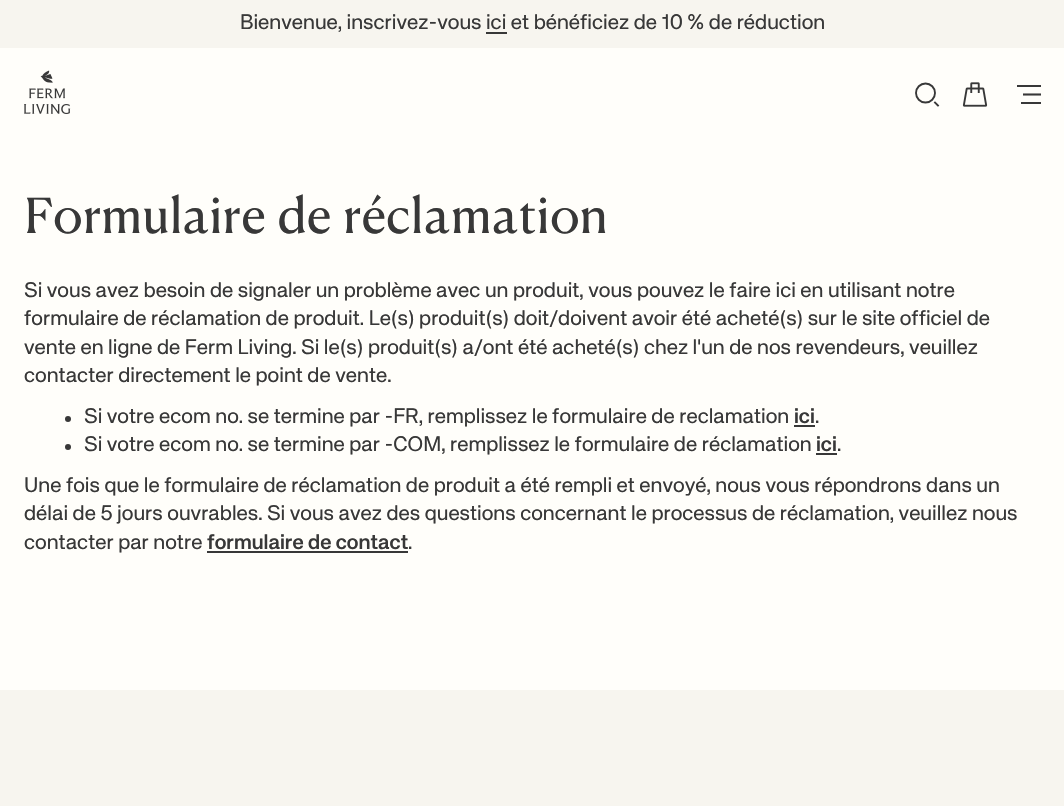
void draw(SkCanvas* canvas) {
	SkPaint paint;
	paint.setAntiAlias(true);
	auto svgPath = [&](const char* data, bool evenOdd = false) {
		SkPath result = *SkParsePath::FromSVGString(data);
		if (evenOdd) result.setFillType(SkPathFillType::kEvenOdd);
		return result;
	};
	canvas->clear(0xfffffefa);
	paint.setColor(0xfff7f5ef);
	canvas->drawRect(SkRect::MakeXYWH(0, 0, 1064, 48), paint);
	SkFont f1(fontMgr->matchFamilyStyle("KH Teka", SkFontStyle::Normal()), 21);
	f1.setSubpixel(true);
	paint.setColor(0xff383838);
	canvas->drawString("Bienvenue, inscrivez-vous ici et bénéficiez de 10 % de réduction", 240, 29, f1, paint);
	canvas->drawRect(SkRect::MakeXYWH(486, 32, 21, 2), paint);
	canvas->drawImageRect(SkImages::DeferredFromEncodedData(SkData::MakeFromFileName("img1.png")), SkRect::MakeXYWH(24, 70, 47, 44), SkSamplingOptions());
	paint.setStroke(true);
	paint.setStrokeWidth(1.9);
	canvas->drawCircle(925.5, 93, 9.5, paint);
	paint.setStrokeCap(SkPaint::kSquare_Cap);
	paint.setStrokeJoin(SkPaint::kRound_Join);
	canvas->drawPath(svgPath("M938 105.5L935 102.5"), paint);
	canvas->drawImageRect(SkImages::DeferredFromEncodedData(SkData::MakeFromFileName("img2.png")), SkRect::MakeXYWH(962, 82, 26, 25), SkSamplingOptions());
	paint.setStroke(false);
	canvas->drawRect(SkRect::MakeXYWH(1017, 85, 24, 2), paint);
	paint.setStroke(true);
	paint.setStrokeWidth(2.1);
	paint.setStrokeCap(SkPaint::kButt_Cap);
	canvas->drawPath(svgPath("M1023 94.5H1041"), paint);
	paint.setStroke(false);
	canvas->drawRect(SkRect::MakeXYWH(1021, 102, 20, 2), paint);
	SkFont f2(fontMgr->matchFamilyStyle("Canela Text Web", SkFontStyle::Normal()), 48);
	f2.setSubpixel(true);
	canvas->drawString("Formulaire de réclamation", 24, 233, f2, paint);
	canvas->drawString("Si vous avez besoin de signaler un problème avec un produit, vous pouvez le faire ici en utilisant notre", 24, 297, f1, paint);
	canvas->drawString("formulaire de réclamation de produit. Le(s) produit(s) doit/doivent avoir été acheté(s) sur le site officiel de", 24, 325, f1, paint);
	canvas->drawString("vente en ligne de Ferm Living. Si le(s) produit(s) a/ont été acheté(s) chez l'un de nos revendeurs, veuillez", 24, 354, f1, paint);
	canvas->drawString("contacter directement le point de vente.", 24, 382, f1, paint);
	canvas->drawCircle(68, 419, 3, paint);
	canvas->drawString("Si votre ecom no. se termine par -FR, remplissez le formulaire de reclamation", 84, 423, f1, paint);
	SkFont f3(fontMgr->matchFamilyStyle("KH Teka", SkFontStyle(500, SkFontStyle::kNormal_Width, SkFontStyle::kUpright_Slant)), 21);
	f3.setSubpixel(true);
	canvas->drawString("ici", 794, 423, f3, paint);
	canvas->drawRect(SkRect::MakeXYWH(794, 425, 21, 2), paint);
	canvas->drawString(".", 815, 423, f1, paint);
	canvas->drawCircle(68, 447, 3, paint);
	canvas->drawString("Si votre ecom no. se termine par -COM, remplissez le formulaire de réclamation", 84, 451, f1, paint);
	canvas->drawString("ici", 816, 451, f3, paint);
	canvas->drawRect(SkRect::MakeXYWH(816, 453, 21, 2), paint);
	canvas->drawString(".", 837, 451, f1, paint);
	canvas->drawString("Une fois que le formulaire de réclamation de produit a été rempli et envoyé, nous vous répondrons dans un", 24, 492, f1, paint);
	canvas->drawString("délai de 5 jours ouvrables. Si vous avez des questions concernant le processus de réclamation, veuillez nous", 24, 520, f1, paint);
	canvas->drawString("contacter par notre", 24, 549, f1, paint);
	canvas->drawString("formulaire de contact", 207, 549, f3, paint);
	canvas->drawRect(SkRect::MakeXYWH(207, 551, 201, 2), paint);
	canvas->drawString(".", 408, 549, f1, paint);
	paint.setColor(0xfff7f5ef);
	canvas->drawRect(SkRect::MakeXYWH(0, 690, 1064, 116), paint);
}
